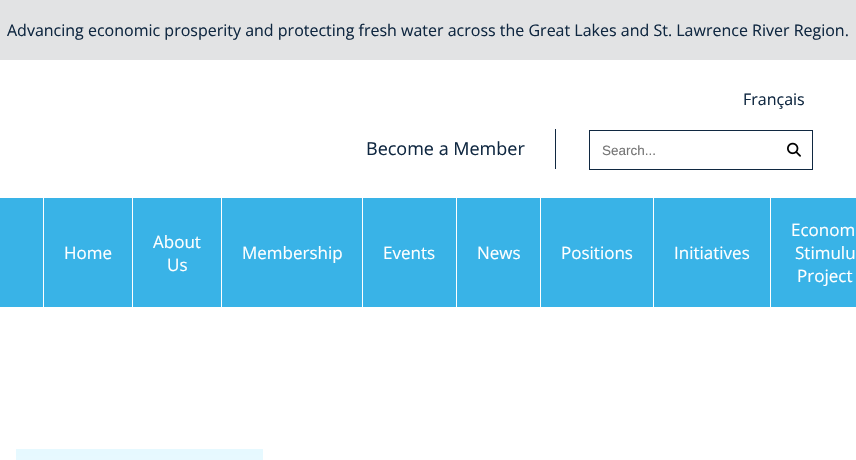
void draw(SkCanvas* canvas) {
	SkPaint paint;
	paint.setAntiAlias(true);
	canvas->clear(0xffffffff);
	paint.setColor(0xffe2e3e4);
	canvas->drawRect(SkRect::MakeXYWH(0, 0, 856, 60), paint);
	SkFont f1(fontMgr->matchFamilyStyle("Open Sans", SkFontStyle::Normal()), 16);
	f1.setSubpixel(true);
	paint.setColor(0xff102841);
	canvas->drawString("Advancing economic prosperity and protecting fresh water across the Great Lakes and St. Lawrence River Region.", 7, 36, f1, paint);
	canvas->drawString("Français", 743, 105, f1, paint);
	SkFont f2(fontMgr->matchFamilyStyle("Open Sans", SkFontStyle::Normal()), 18);
	f2.setSubpixel(true);
	canvas->drawString("Become a Member", 366, 155, f2, paint);
	canvas->drawRect(SkRect::MakeXYWH(555, 129, 1, 40), paint);
	paint.setStroke(true);
	paint.setStrokeWidth(1);
	canvas->drawRect(SkRect::MakeXYWH(589.5, 130.5, 223, 39), paint);
	SkFont f3(fontMgr->matchFamilyStyle("Liberation Sans", SkFontStyle::Normal()), 13.5);
	f3.setSubpixel(true);
	paint.setStroke(false);
	paint.setColor(0xff757575);
	canvas->drawString("Search...", 602, 155, f3, paint);
	canvas->drawImageRect(SkImages::DeferredFromEncodedData(SkData::MakeFromFileName("img1.png")), SkRect::MakeXYWH(787, 142, 14, 15), SkSamplingOptions());
	paint.setColor(0xff39b3e7);
	canvas->drawRect(SkRect::MakeXYWH(0, 198, 856, 109), paint);
	paint.setColor(0xffffffff);
	canvas->drawRect(SkRect::MakeXYWH(132, 198, 1, 109), paint);
	canvas->drawRect(SkRect::MakeXYWH(43, 198, 1, 109), paint);
	SkFont f4(fontMgr->matchFamilyStyle("Open Sans", SkFontStyle::Normal()), 17);
	f4.setSubpixel(true);
	canvas->drawString("Home", 64, 259, f4, paint);
	canvas->drawRect(SkRect::MakeXYWH(221, 198, 1, 109), paint);
	canvas->drawString("About", 153, 248, f4, paint);
	canvas->drawString("Us", 167, 271, f4, paint);
	canvas->drawRect(SkRect::MakeXYWH(362, 198, 1, 109), paint);
	canvas->drawString("Membership", 242, 259, f4, paint);
	canvas->drawRect(SkRect::MakeXYWH(456, 198, 1, 109), paint);
	canvas->drawString("Events", 383, 259, f4, paint);
	canvas->drawRect(SkRect::MakeXYWH(540, 198, 1, 109), paint);
	canvas->drawString("News", 477, 259, f4, paint);
	canvas->drawRect(SkRect::MakeXYWH(653, 198, 1, 109), paint);
	canvas->drawString("Positions", 561, 259, f4, paint);
	canvas->drawRect(SkRect::MakeXYWH(770, 198, 1, 109), paint);
	canvas->drawString("Initiatives", 674, 259, f4, paint);
	canvas->drawString("Econom", 791, 236, f4, paint);
	canvas->drawString("Stimulu", 795, 259, f4, paint);
	canvas->drawString("Project", 797, 282, f4, paint);
	{
		const SkColor colors[] = {0xffe6f9ff, 0xffffffff};
		const float stops[] = {0, 1};
		const SkPoint ends[] = {{139, 449}, {140, 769}};
		paint.setShader(SkGradientShader::MakeLinear(ends, colors, stops, 2, SkTileMode::kClamp));
		paint.setAlpha(255);
	}
	canvas->drawRect(SkRect::MakeXYWH(16, 449, 247, 11), paint);
}
